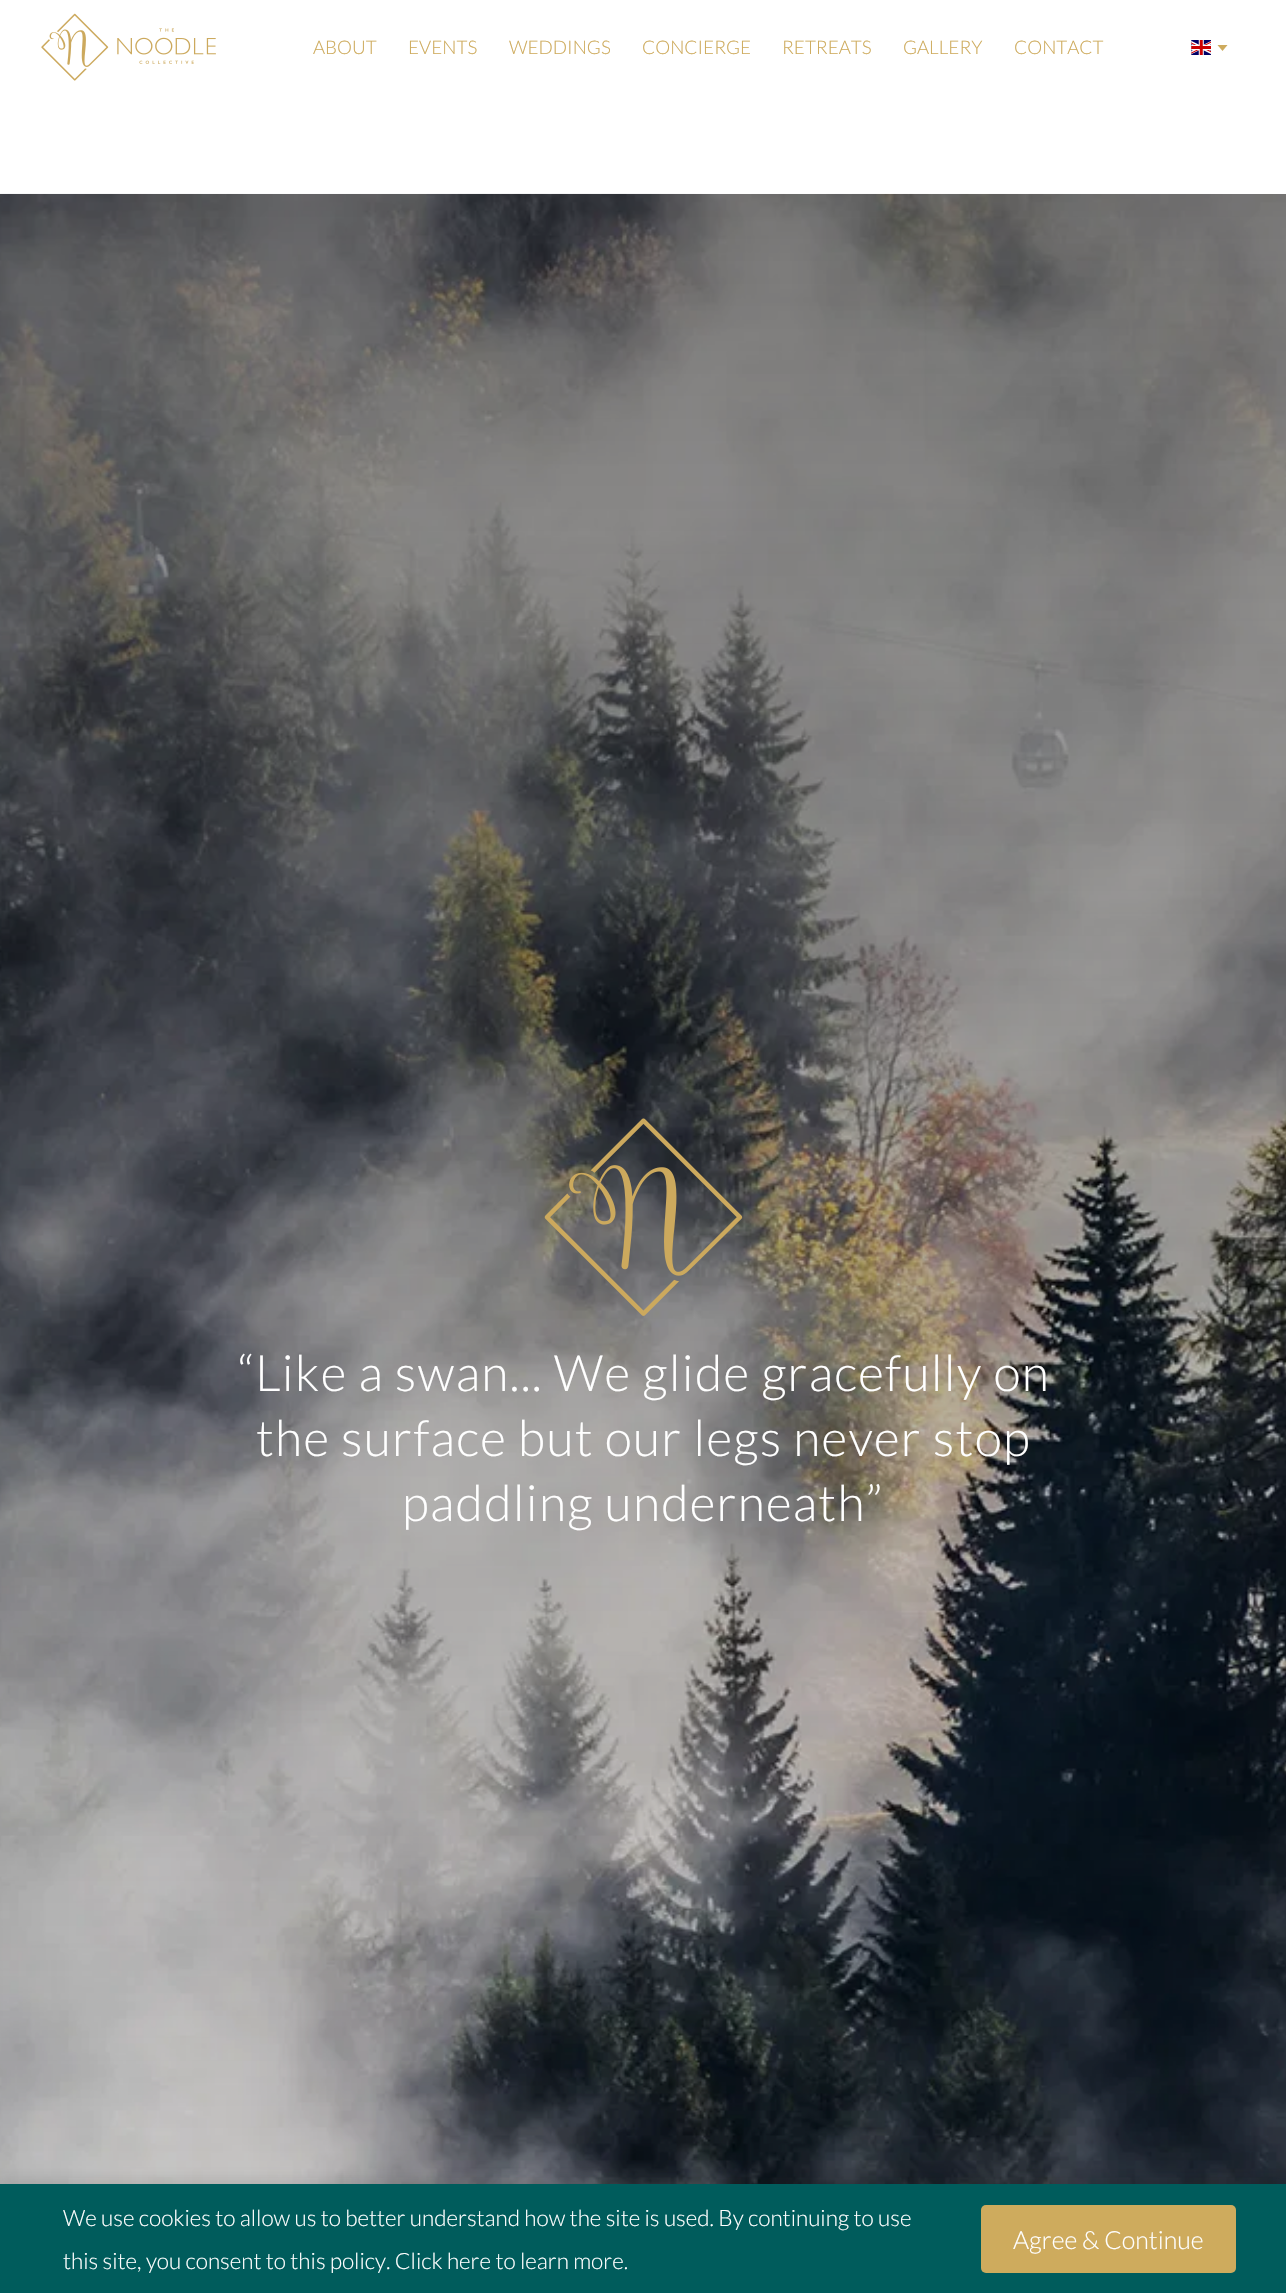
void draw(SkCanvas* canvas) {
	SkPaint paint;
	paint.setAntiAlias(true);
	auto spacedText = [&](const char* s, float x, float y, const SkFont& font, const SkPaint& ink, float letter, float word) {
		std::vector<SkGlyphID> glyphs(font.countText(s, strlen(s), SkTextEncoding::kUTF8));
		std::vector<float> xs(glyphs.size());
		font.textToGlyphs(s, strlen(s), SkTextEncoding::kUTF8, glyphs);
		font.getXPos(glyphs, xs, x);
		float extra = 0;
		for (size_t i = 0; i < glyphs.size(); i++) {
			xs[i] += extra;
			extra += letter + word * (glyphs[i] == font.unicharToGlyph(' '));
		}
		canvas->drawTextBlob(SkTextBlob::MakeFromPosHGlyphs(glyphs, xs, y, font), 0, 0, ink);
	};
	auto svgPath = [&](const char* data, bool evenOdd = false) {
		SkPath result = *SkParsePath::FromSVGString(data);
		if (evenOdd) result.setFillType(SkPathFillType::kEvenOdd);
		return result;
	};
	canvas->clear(0xffffffff);
	canvas->drawImageRect(SkImages::DeferredFromEncodedData(SkData::MakeFromFileName("img1.png")), SkRect::MakeXYWH(41, 13, 175, 68), SkSamplingOptions());
	SkFont f1(fontMgr->matchFamilyStyle("Lato", SkFontStyle(300, SkFontStyle::kNormal_Width, SkFontStyle::kUpright_Slant)), 18.75);
	f1.setSubpixel(true);
	paint.setColor(0xffceab5d);
	canvas->drawString("ABOUT", 313, 54, f1, paint);
	canvas->drawString("EVENTS", 408, 54, f1, paint);
	canvas->drawString("WEDDINGS", 509, 54, f1, paint);
	canvas->drawString("CONCIERGE", 642, 54, f1, paint);
	canvas->drawString("RETREATS", 782, 54, f1, paint);
	canvas->drawString("GALLERY", 903, 54, f1, paint);
	canvas->drawString("CONTACT", 1014, 54, f1, paint);
	canvas->drawImageRect(SkImages::DeferredFromEncodedData(SkData::MakeFromFileName("img2.png")), SkRect::MakeXYWH(1191, 40, 20, 15), SkSamplingOptions());
	canvas->drawPath(svgPath("M1217.5 45H1227.5L1222.5 51Z"), paint);
	canvas->drawImageRect(SkImages::DeferredFromEncodedData(SkData::MakeFromFileName("img3.png")), SkRect::MakeXYWH(0, 193, 1286, 1991), SkSamplingOptions());
	canvas->drawImageRect(SkImages::DeferredFromEncodedData(SkData::MakeFromFileName("img4.png")), SkRect::MakeXYWH(544, 1118, 199, 198), SkSamplingOptions());
	SkFont f2(fontMgr->matchFamilyStyle("Lato", SkFontStyle(300, SkFontStyle::kNormal_Width, SkFontStyle::kUpright_Slant)), 50);
	f2.setSubpixel(true);
	paint.setColor(0xffffffff);
	spacedText("“Like a swan... We glide gracefully on", 237, 1391, f2, paint, 1.25, 0);
	spacedText("the surface but our legs never stop", 256, 1456, f2, paint, 1.25, 0);
	spacedText("paddling underneath”", 402, 1521, f2, paint, 1.25, 0);
	paint.setColor(0x1a161515);
	paint.setMaskFilter(SkMaskFilter::MakeBlur(kNormal_SkBlurStyle, 6));
	canvas->drawRect(SkRect::MakeXYWH(0, 2178, 1286, 110), paint);
	paint.setMaskFilter(nullptr);
	paint.setColor(0xff005c5c);
	canvas->drawRect(SkRect::MakeXYWH(0, 2184, 1286, 109), paint);
	SkFont f3(fontMgr->matchFamilyStyle("Lato", SkFontStyle(300, SkFontStyle::kNormal_Width, SkFontStyle::kUpright_Slant)), 22.5);
	f3.setSubpixel(true);
	paint.setColor(0xffffffff);
	canvas->drawString("We use cookies to allow us to better understand how the site is used. By continuing to use", 63, 2226, f3, paint);
	canvas->drawString("this site, you consent to this policy. Click here to learn more.", 63, 2269, f3, paint);
	paint.setColor(0xffceab5d);
	canvas->drawRoundRect(SkRect::MakeXYWH(981, 2205, 255, 68), 5, 5, paint);
	SkFont f4(fontMgr->matchFamilyStyle("Lato", SkFontStyle(300, SkFontStyle::kNormal_Width, SkFontStyle::kUpright_Slant)), 25);
	f4.setSubpixel(true);
	paint.setColor(0xffffffff);
	canvas->drawString("Agree & Continue", 1013, 2249, f4, paint);
}
